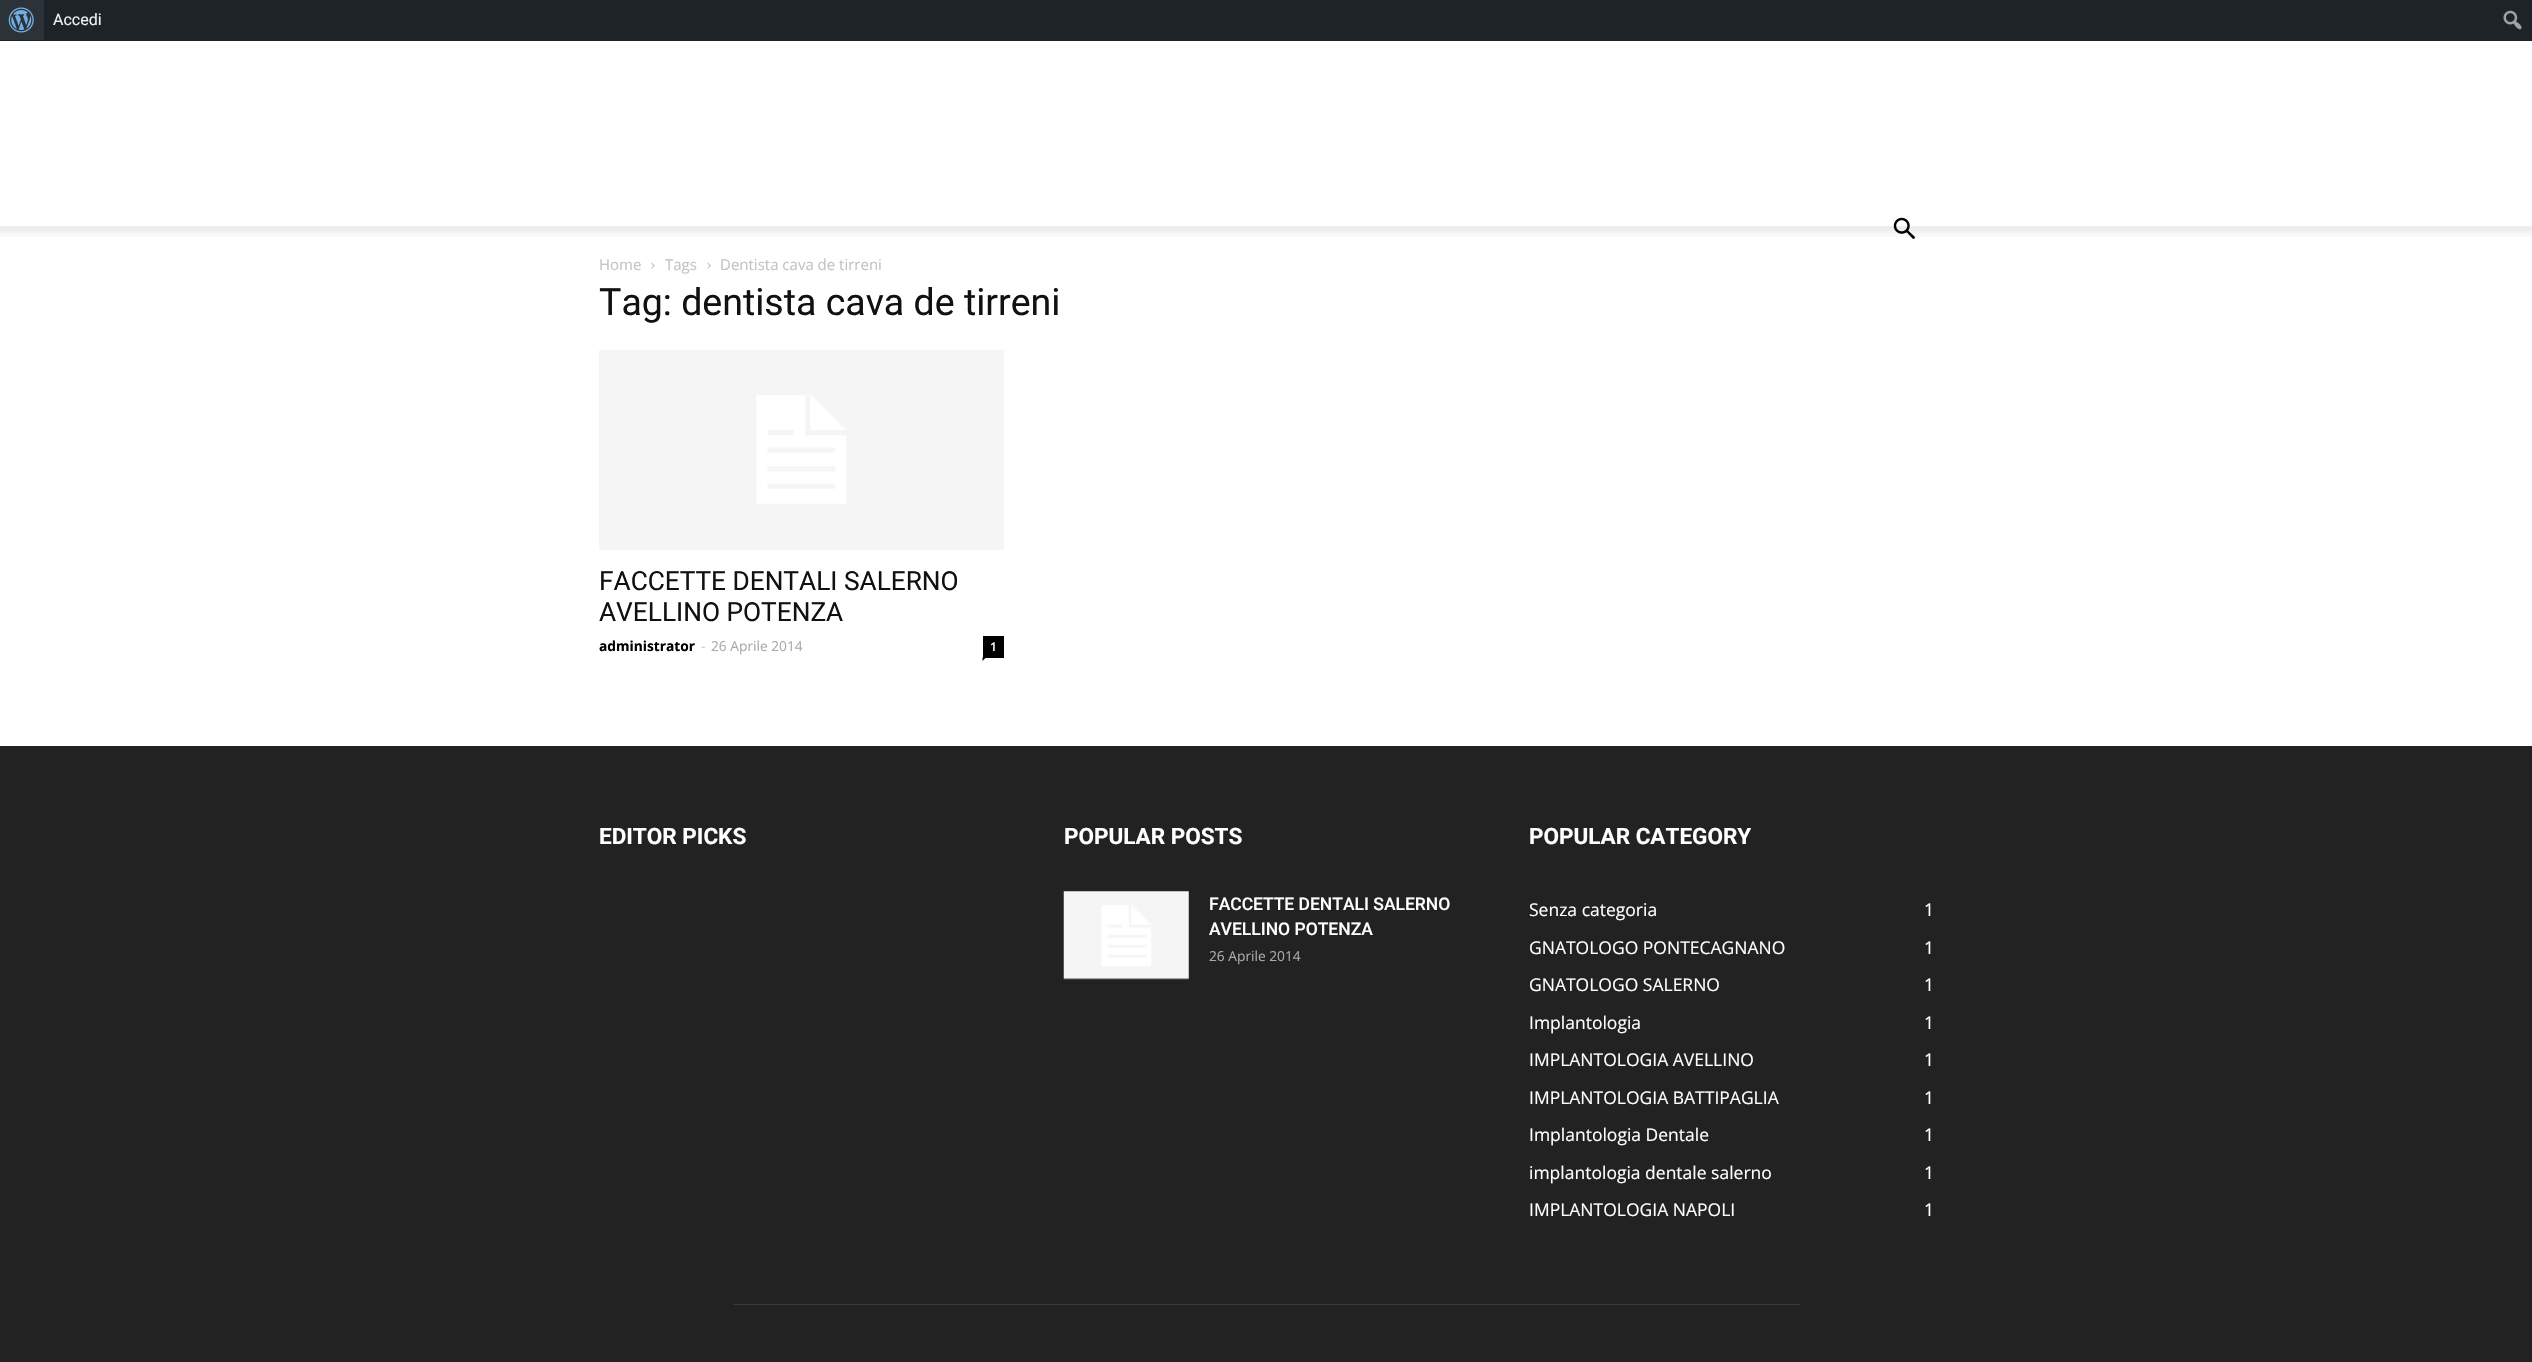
void draw(SkCanvas* canvas) {
	SkPaint paint;
	paint.setAntiAlias(true);
	auto svgPath = [&](const char* data, bool evenOdd = false) {
		SkPath result = *SkParsePath::FromSVGString(data);
		if (evenOdd) result.setFillType(SkPathFillType::kEvenOdd);
		return result;
	};
	canvas->clear(0xffffffff);
	paint.setColor(0xff1d2327);
	canvas->drawRect(SkRect::MakeXYWH(44, 0, 2488, 40), paint);
	paint.setColor(0xff2c3338);
	canvas->drawRect(SkRect::MakeXYWH(0, 0, 44, 40), paint);
	canvas->drawImageRect(SkImages::DeferredFromEncodedData(SkData::MakeFromFileName("img1.png")), SkRect::MakeXYWH(8, 7, 26, 26), SkSamplingOptions());
	SkFont f1(fontMgr->matchFamilyStyle("Roboto", SkFontStyle::Normal()), 16);
	f1.setSubpixel(true);
	paint.setColor(0xfff0f0f1);
	canvas->drawString("Accedi", 53, 25, f1, paint);
	canvas->drawImageRect(SkImages::DeferredFromEncodedData(SkData::MakeFromFileName("img2.png")), SkRect::MakeXYWH(2503, 10, 19, 20), SkSamplingOptions());
	paint.setColor(0xff222222);
	canvas->drawRect(SkRect::MakeXYWH(0, 40, 2532, 1), paint);
	canvas->drawImageRect(SkImages::DeferredFromEncodedData(SkData::MakeFromFileName("img4.png")), SkRect::MakeXYWH(0, 226, 2532, 11), SkSamplingOptions());
	canvas->drawImageRect(SkImages::DeferredFromEncodedData(SkData::MakeFromFileName("img3.png")), SkRect::MakeXYWH(1893, 217, 22, 22), SkSamplingOptions());
	SkFont f2(fontMgr->matchFamilyStyle("Open Sans", SkFontStyle::Normal()), 15);
	f2.setSubpixel(true);
	paint.setColor(0xffc3c3c3);
	canvas->drawString("Home", 599, 270, f2, paint);
	canvas->drawImageRect(SkImages::DeferredFromEncodedData(SkData::MakeFromFileName("img5.png")), SkRect::MakeXYWH(651, 262, 4, 7), SkSamplingOptions());
	canvas->drawString("Tags", 665, 270, f2, paint);
	canvas->drawImageRect(SkImages::DeferredFromEncodedData(SkData::MakeFromFileName("img6.png")), SkRect::MakeXYWH(707, 262, 4, 7), SkSamplingOptions());
	canvas->drawString("Dentista cava de tirreni", 720, 270, f2, paint);
	SkFont f3(fontMgr->matchFamilyStyle("Roboto", SkFontStyle::Normal()), 37.5);
	f3.setSubpixel(true);
	paint.setColor(0xff111111);
	canvas->drawString("Tag: dentista cava de tirreni", 599, 315, f3, paint);
	canvas->drawImageRect(SkImages::DeferredFromEncodedData(SkData::MakeFromFileName("img7.png")), SkRect::MakeXYWH(599, 350, 405, 200), SkSamplingOptions());
	SkFont f4(fontMgr->matchFamilyStyle("Roboto", SkFontStyle::Normal()), 26.25);
	f4.setSubpixel(true);
	canvas->drawString("FACCETTE DENTALI SALERNO", 599, 590, f4, paint);
	canvas->drawString("AVELLINO POTENZA", 599, 621, f4, paint);
	SkFont f5(fontMgr->matchFamilyStyle("Open Sans", SkFontStyle::Bold()), 13.75);
	f5.setSubpixel(true);
	paint.setColor(0xff000000);
	canvas->drawString("administrator", 599, 651, f5, paint);
	SkFont f6(fontMgr->matchFamilyStyle("Open Sans", SkFontStyle::Normal()), 13.75);
	f6.setSubpixel(true);
	paint.setColor(0xffcccccc);
	canvas->drawString("-", 701, 651, f6, paint);
	paint.setColor(0xffaaaaaa);
	canvas->drawString("26 Aprile 2014", 711, 651, f6, paint);
	paint.setColor(0xff000000);
	canvas->drawRect(SkRect::MakeXYWH(983, 636, 21, 22), paint);
	SkFont f7(fontMgr->matchFamilyStyle("Open Sans", SkFontStyle(600, SkFontStyle::kNormal_Width, SkFontStyle::kUpright_Slant)), 12);
	f7.setSubpixel(true);
	paint.setColor(0xffffffff);
	canvas->drawString("1", 990, 651, f7, paint);
	paint.setColor(0xff000000);
	canvas->drawPath(svgPath("M982.5 657.5H986L982.5 661Z"), paint);
	paint.setColor(0xff222222);
	canvas->drawRect(SkRect::MakeXYWH(0, 746, 2532, 616), paint);
	SkFont f8(fontMgr->matchFamilyStyle("Roboto", SkFontStyle::Bold()), 22.5);
	f8.setSubpixel(true);
	paint.setColor(0xffffffff);
	canvas->drawString("EDITOR PICKS", 599, 844, f8, paint);
	canvas->drawString("POPULAR POSTS", 1064, 844, f8, paint);
	canvas->drawImageRect(SkImages::DeferredFromEncodedData(SkData::MakeFromFileName("img8.png")), SkRect::MakeXYWH(1063, 891, 126, 89), SkSamplingOptions());
	SkFont f9(fontMgr->matchFamilyStyle("Roboto", SkFontStyle(500, SkFontStyle::kNormal_Width, SkFontStyle::kUpright_Slant)), 17.5);
	f9.setSubpixel(true);
	canvas->drawString("FACCETTE DENTALI SALERNO", 1209, 910, f9, paint);
	canvas->drawString("AVELLINO POTENZA", 1209, 935, f9, paint);
	paint.setColor(0xffaaaaaa);
	canvas->drawString("26 Aprile 2014", 1209, 961, f6, paint);
	paint.setColor(0xffffffff);
	canvas->drawString("POPULAR CATEGORY", 1529, 844, f8, paint);
	SkFont f10(fontMgr->matchFamilyStyle("Open Sans", SkFontStyle::Normal()), 17.5);
	f10.setSubpixel(true);
	canvas->drawString("Senza categoria", 1529, 916, f10, paint);
	canvas->drawString("1", 1924, 916, f10, paint);
	canvas->drawString("GNATOLOGO PONTECAGNANO", 1529, 954, f10, paint);
	canvas->drawString("1", 1924, 954, f10, paint);
	canvas->drawString("GNATOLOGO SALERNO", 1529, 991, f10, paint);
	canvas->drawString("1", 1924, 991, f10, paint);
	canvas->drawString("Implantologia", 1529, 1029, f10, paint);
	canvas->drawString("1", 1924, 1029, f10, paint);
	canvas->drawString("IMPLANTOLOGIA AVELLINO", 1529, 1066, f10, paint);
	canvas->drawString("1", 1924, 1066, f10, paint);
	canvas->drawString("IMPLANTOLOGIA BATTIPAGLIA", 1529, 1104, f10, paint);
	canvas->drawString("1", 1924, 1104, f10, paint);
	canvas->drawString("Implantologia Dentale", 1529, 1141, f10, paint);
	canvas->drawString("1", 1924, 1141, f10, paint);
	canvas->drawString("implantologia dentale salerno", 1529, 1179, f10, paint);
	canvas->drawString("1", 1924, 1179, f10, paint);
	canvas->drawString("IMPLANTOLOGIA NAPOLI", 1529, 1216, f10, paint);
	canvas->drawString("1", 1924, 1216, f10, paint);
	paint.setColor(0xff383838);
	canvas->drawRect(SkRect::MakeXYWH(733, 1304, 1067, 1), paint);
}
